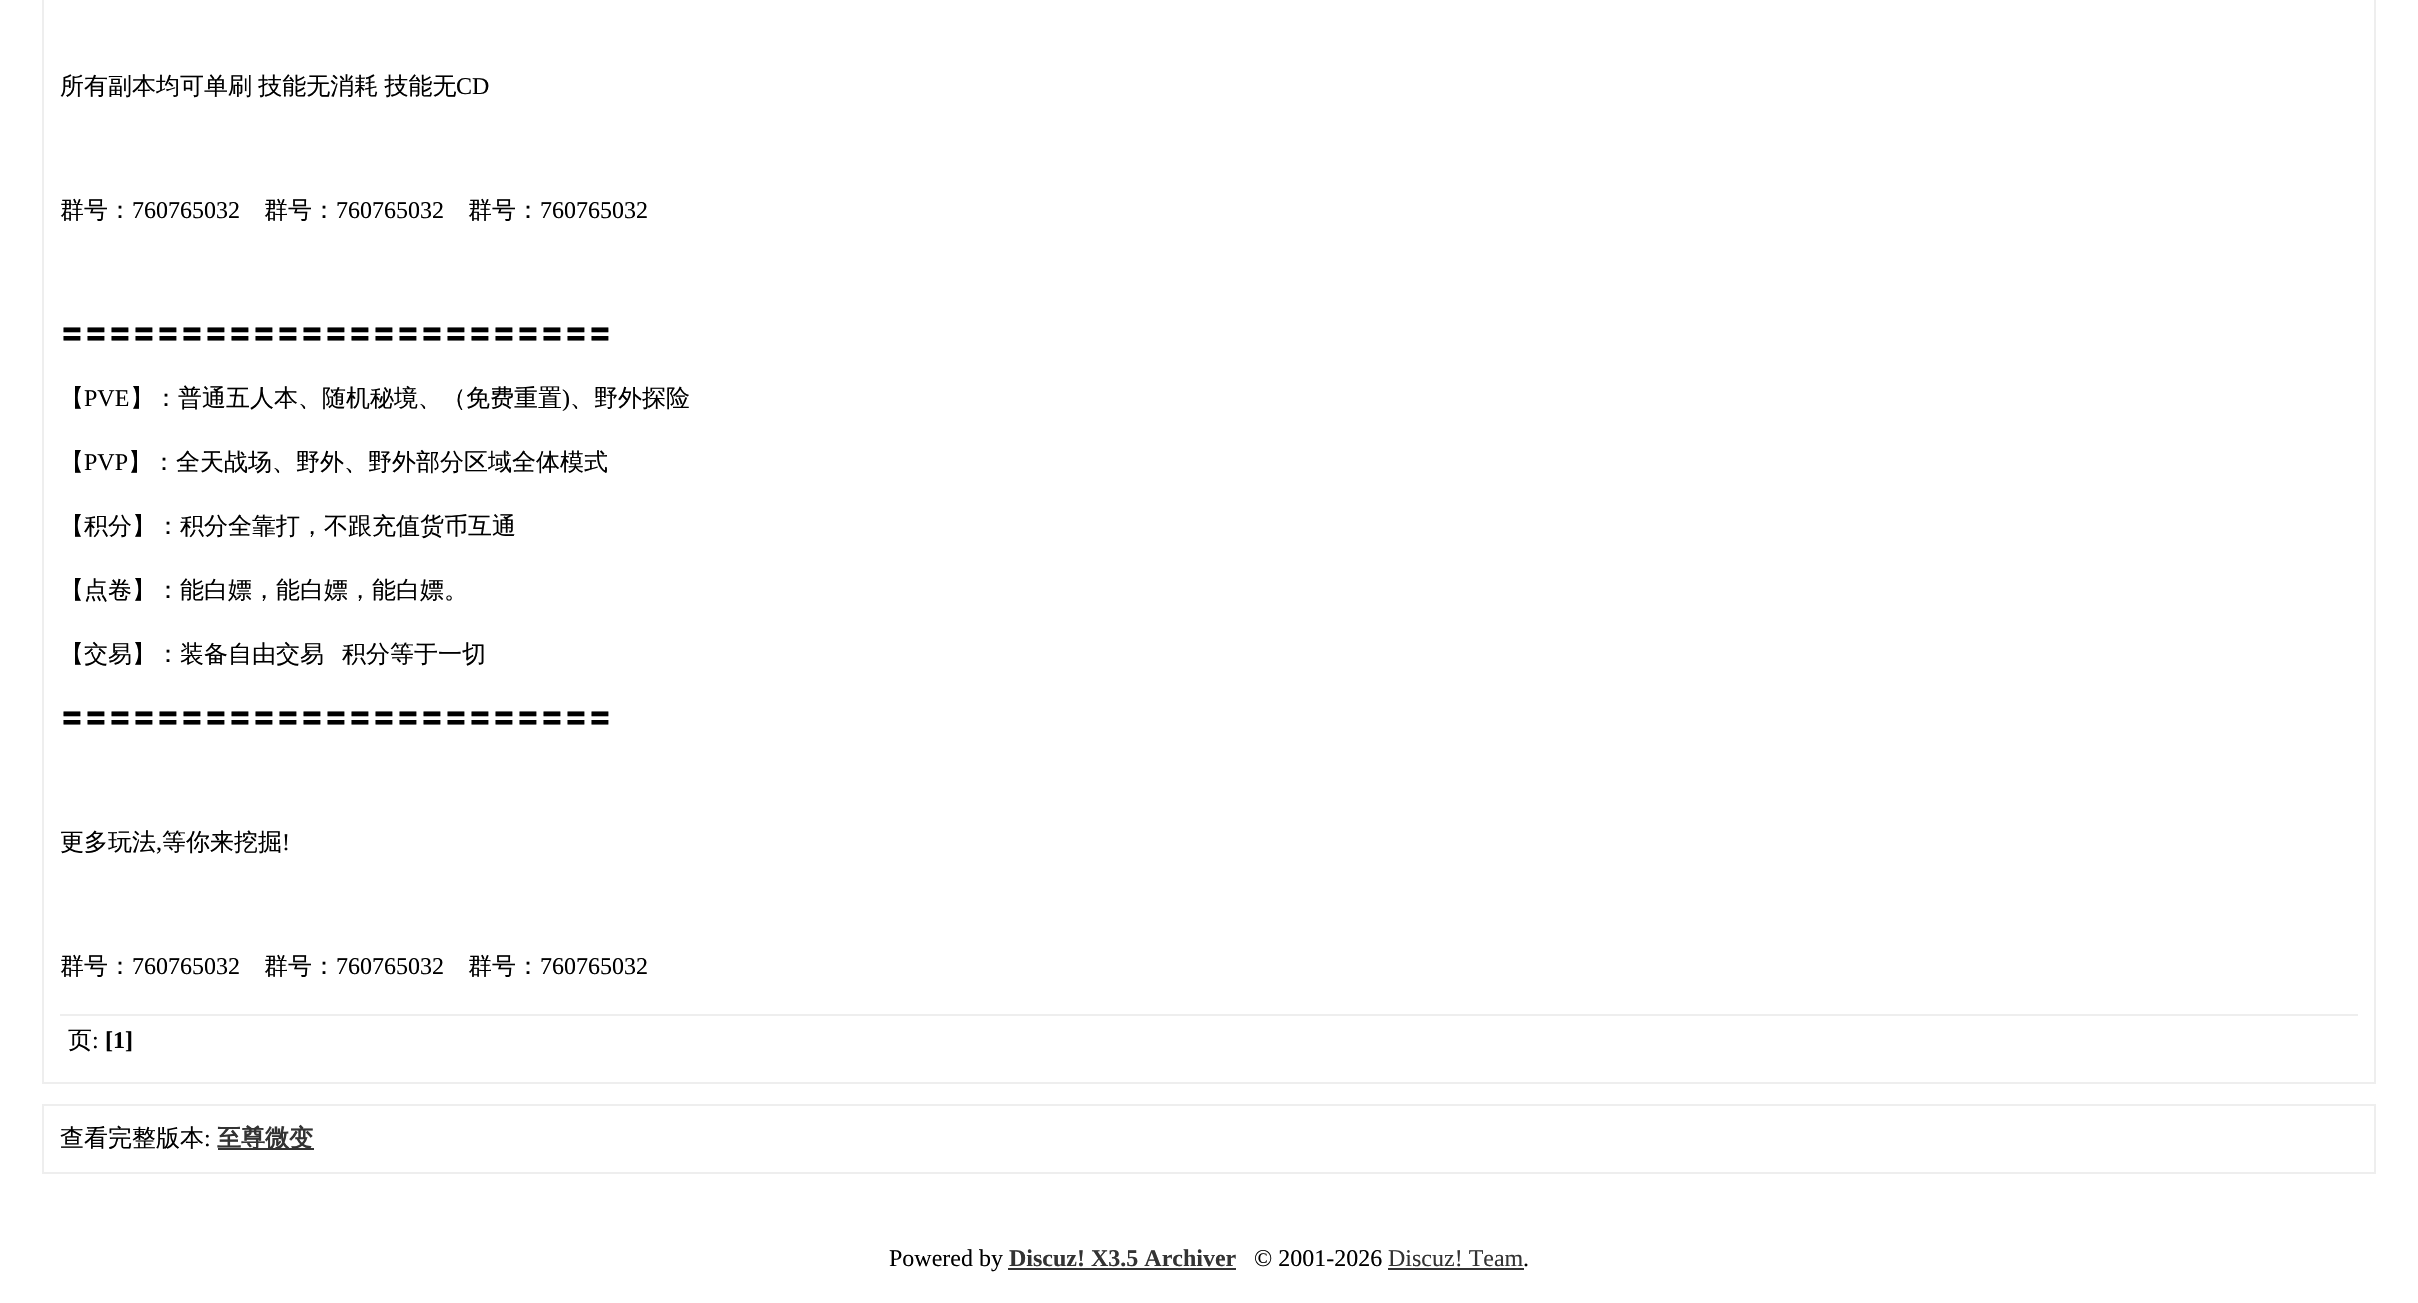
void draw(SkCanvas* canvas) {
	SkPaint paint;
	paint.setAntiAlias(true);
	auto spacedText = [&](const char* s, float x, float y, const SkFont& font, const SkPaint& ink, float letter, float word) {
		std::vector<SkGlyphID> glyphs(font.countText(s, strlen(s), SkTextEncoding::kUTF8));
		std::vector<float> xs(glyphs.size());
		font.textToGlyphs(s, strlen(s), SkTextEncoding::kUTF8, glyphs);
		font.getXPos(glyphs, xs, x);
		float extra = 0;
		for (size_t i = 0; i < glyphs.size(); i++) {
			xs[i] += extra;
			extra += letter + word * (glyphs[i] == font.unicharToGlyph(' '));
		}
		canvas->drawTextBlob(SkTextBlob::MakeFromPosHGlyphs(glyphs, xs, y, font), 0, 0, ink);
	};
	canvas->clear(0xffffffff);
	paint.setStroke(true);
	paint.setStrokeWidth(2);
	paint.setColor(0xffeeeeee);
	canvas->drawRect(SkRect::MakeXYWH(43, -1, 2332, 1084), paint);
	SkFont f1(fontMgr->matchFamilyStyle("WenQuanYi Zen Hei", SkFontStyle(500, SkFontStyle::kNormal_Width, SkFontStyle::kUpright_Slant)), 24);
	f1.setSubpixel(true);
	paint.setStroke(false);
	paint.setColor(0xff000000);
	spacedText("所有副本均可单刷 技能无消耗 技能无", 60, 94, f1, paint, 0, -1);
	SkFont f2(fontMgr->matchFamilyStyle("Liberation Serif", SkFontStyle::Normal()), 24);
	f2.setSubpixel(true);
	canvas->drawString("CD", 456, 94, f2, paint);
	canvas->drawString("群号：", 60, 218, f1, paint);
	canvas->drawString("760765032", 132, 218, f2, paint);
	canvas->drawString("群号：", 264, 218, f1, paint);
	canvas->drawString("760765032", 336, 218, f2, paint);
	canvas->drawString("群号：", 468, 218, f1, paint);
	canvas->drawString("760765032", 540, 218, f2, paint);
	canvas->drawString("〓〓〓〓〓〓〓〓〓〓〓〓〓〓〓〓〓〓〓〓〓〓〓", 60, 342, f1, paint);
	canvas->drawString("【", 60, 406, f1, paint);
	canvas->drawString("PVE", 84, 406, f2, paint);
	canvas->drawString("】：普通五人本、随机秘境、（免费重置", 130, 406, f1, paint);
	canvas->drawString(")", 562, 406, f2, paint);
	canvas->drawString("、野外探险", 570, 406, f1, paint);
	canvas->drawString("【", 60, 470, f1, paint);
	canvas->drawString("PVP", 84, 470, f2, paint);
	canvas->drawString("】：全天战场、野外、野外部分区域全体模式", 128, 470, f1, paint);
	canvas->drawString("【积分】：积分全靠打，不跟充值货币互通", 60, 534, f1, paint);
	canvas->drawString("【点卷】：能白嫖，能白嫖，能白嫖。", 60, 598, f1, paint);
	canvas->drawString("【交易】：装备自由交易", 60, 662, f1, paint);
	canvas->drawString("积分等于一切", 342, 662, f1, paint);
	canvas->drawString("〓〓〓〓〓〓〓〓〓〓〓〓〓〓〓〓〓〓〓〓〓〓〓", 60, 726, f1, paint);
	canvas->drawString("更多玩法", 60, 850, f1, paint);
	canvas->drawString(",", 156, 850, f2, paint);
	canvas->drawString("等你来挖掘", 162, 850, f1, paint);
	canvas->drawString("!", 282, 850, f2, paint);
	canvas->drawString("群号：", 60, 974, f1, paint);
	canvas->drawString("760765032", 132, 974, f2, paint);
	canvas->drawString("群号：", 264, 974, f1, paint);
	canvas->drawString("760765032", 336, 974, f2, paint);
	canvas->drawString("群号：", 468, 974, f1, paint);
	canvas->drawString("760765032", 540, 974, f2, paint);
	paint.setColor(0xffeeeeee);
	canvas->drawRect(SkRect::MakeXYWH(60, 1014, 2298, 2), paint);
	paint.setColor(0xff000000);
	canvas->drawString("页", 68, 1048, f1, paint);
	canvas->drawString(":", 92, 1048, f2, paint);
	SkFont f3(fontMgr->matchFamilyStyle("Liberation Serif", SkFontStyle::Bold()), 24);
	f3.setSubpixel(true);
	canvas->drawString("[1]", 105, 1048, f3, paint);
	paint.setStroke(true);
	paint.setColor(0xffeeeeee);
	canvas->drawRect(SkRect::MakeXYWH(43, 1105, 2332, 68), paint);
	paint.setStroke(false);
	paint.setColor(0xff000000);
	canvas->drawString("查看完整版本", 60, 1146, f1, paint);
	canvas->drawString(":", 204, 1146, f2, paint);
	paint.setColor(0xff333333);
	canvas->drawRect(SkRect::MakeXYWH(218, 1148, 96, 2), paint);
	SkFont f4(fontMgr->matchFamilyStyle("WenQuanYi Zen Hei", SkFontStyle::Bold()), 24);
	f4.setSubpixel(true);
	canvas->drawString("至尊微变", 217, 1146, f4, paint);
	paint.setColor(0xff000000);
	canvas->drawString("Powered by", 889, 1266, f2, paint);
	paint.setColor(0xff333333);
	canvas->drawString("Discuz! X3.5 Archiver", 1009, 1266, f3, paint);
	canvas->drawRect(SkRect::MakeXYWH(1008, 1268, 228, 2), paint);
	paint.setColor(0xff000000);
	canvas->drawString("© 2001-2026", 1254, 1266, f2, paint);
	paint.setColor(0xff333333);
	canvas->drawString("Discuz! Team", 1388, 1266, f2, paint);
	canvas->drawRect(SkRect::MakeXYWH(1388, 1268, 136, 2), paint);
	paint.setColor(0xff000000);
	canvas->drawString(".", 1523, 1266, f2, paint);
}
